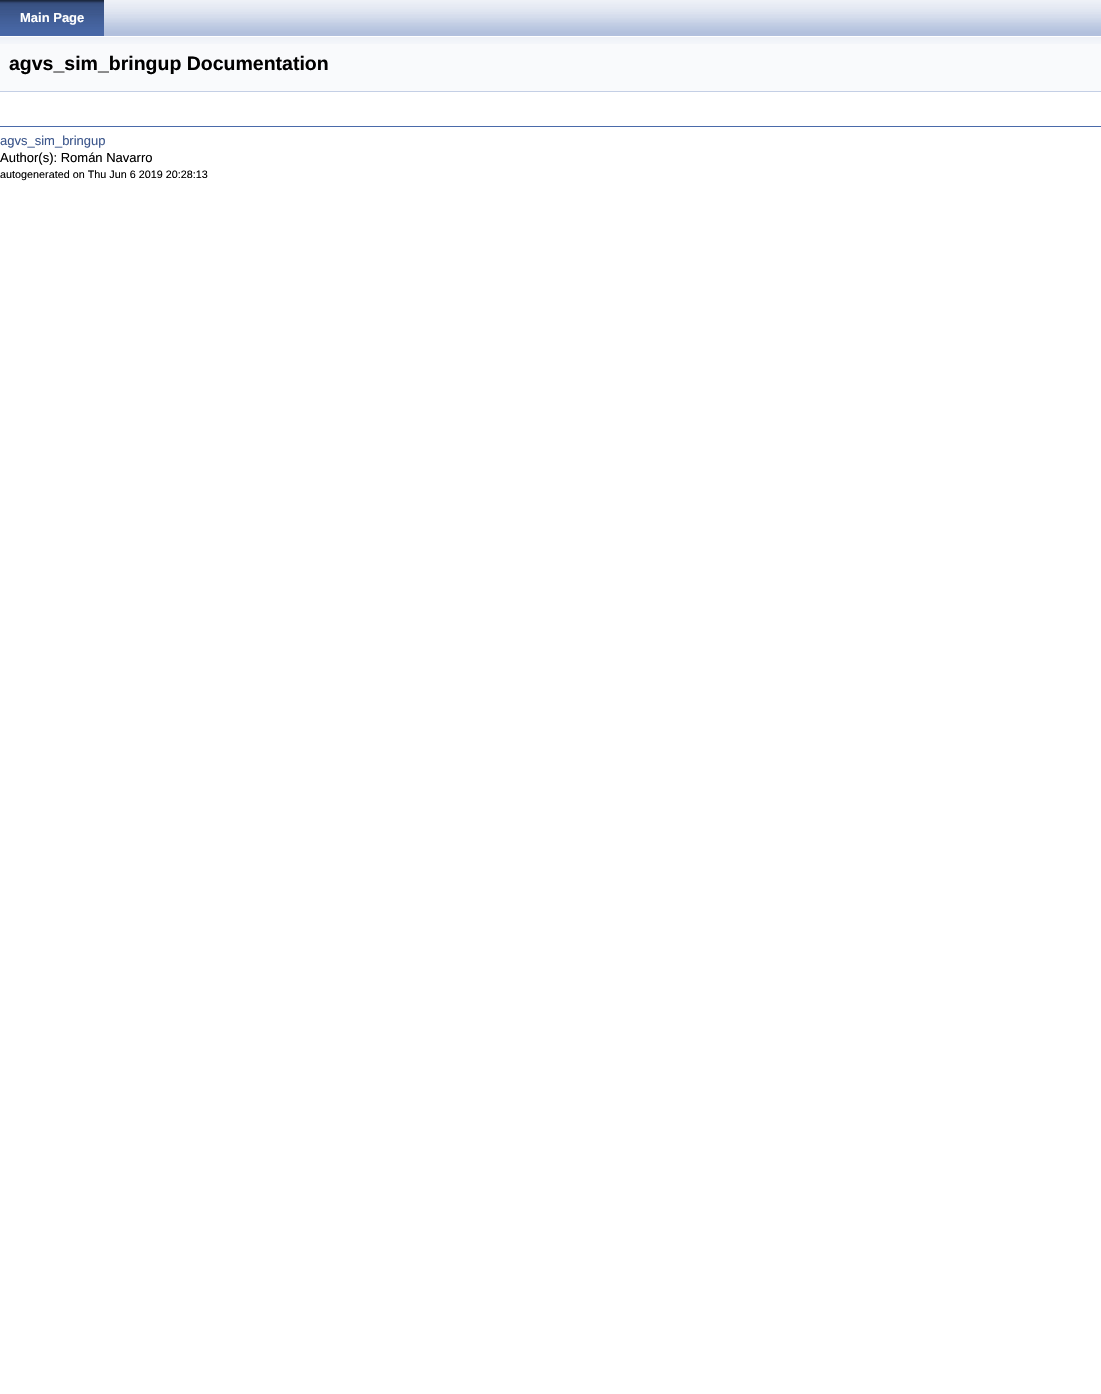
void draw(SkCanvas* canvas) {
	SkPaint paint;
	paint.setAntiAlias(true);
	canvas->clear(0xffffffff);
	canvas->drawImageRect(SkImages::DeferredFromEncodedData(SkData::MakeFromFileName("img1.png")), SkRect::MakeXYWH(104, 0, 997, 36), SkSamplingOptions());
	canvas->drawImageRect(SkImages::DeferredFromEncodedData(SkData::MakeFromFileName("img2.png")), SkRect::MakeXYWH(0, 0, 104, 36), SkSamplingOptions());
	SkFont f1(fontMgr->matchFamilyStyle("Liberation Sans", SkFontStyle::Bold()), 13);
	f1.setSubpixel(true);
	paint.setColor(0xffffffff);
	canvas->drawString("Main Page", 20, 22, f1, paint);
	paint.setColor(0xfff9fafc);
	canvas->drawRect(SkRect::MakeXYWH(0, 44, 1101, 47), paint);
	canvas->drawImageRect(SkImages::DeferredFromEncodedData(SkData::MakeFromFileName("img3.png")), SkRect::MakeXYWH(0, 36, 1101, 8), SkSamplingOptions());
	paint.setColor(0xffc4cfe5);
	canvas->drawRect(SkRect::MakeXYWH(0, 91, 1101, 1), paint);
	SkFont f2(fontMgr->matchFamilyStyle("Liberation Sans", SkFontStyle::Bold()), 19.5);
	f2.setSubpixel(true);
	paint.setColor(0xff000000);
	canvas->drawString("agvs_sim_bringup Documentation", 9, 70, f2, paint);
	paint.setColor(0xff4a6aaa);
	canvas->drawRect(SkRect::MakeXYWH(0, 126, 1101, 1), paint);
	SkFont f3(fontMgr->matchFamilyStyle("Liberation Sans", SkFontStyle::Normal()), 13);
	f3.setSubpixel(true);
	paint.setColor(0xff3d578c);
	canvas->drawString("agvs_sim_bringup", 0, 145, f3, paint);
	paint.setColor(0xff000000);
	canvas->drawString("Author(s): Román Navarro", 0, 162, f3, paint);
	SkFont f4(fontMgr->matchFamilyStyle("Liberation Sans", SkFontStyle::Normal()), 10.8);
	f4.setSubpixel(true);
	canvas->drawString("autogenerated on Thu Jun 6 2019 20:28:13", 0, 178, f4, paint);
}
